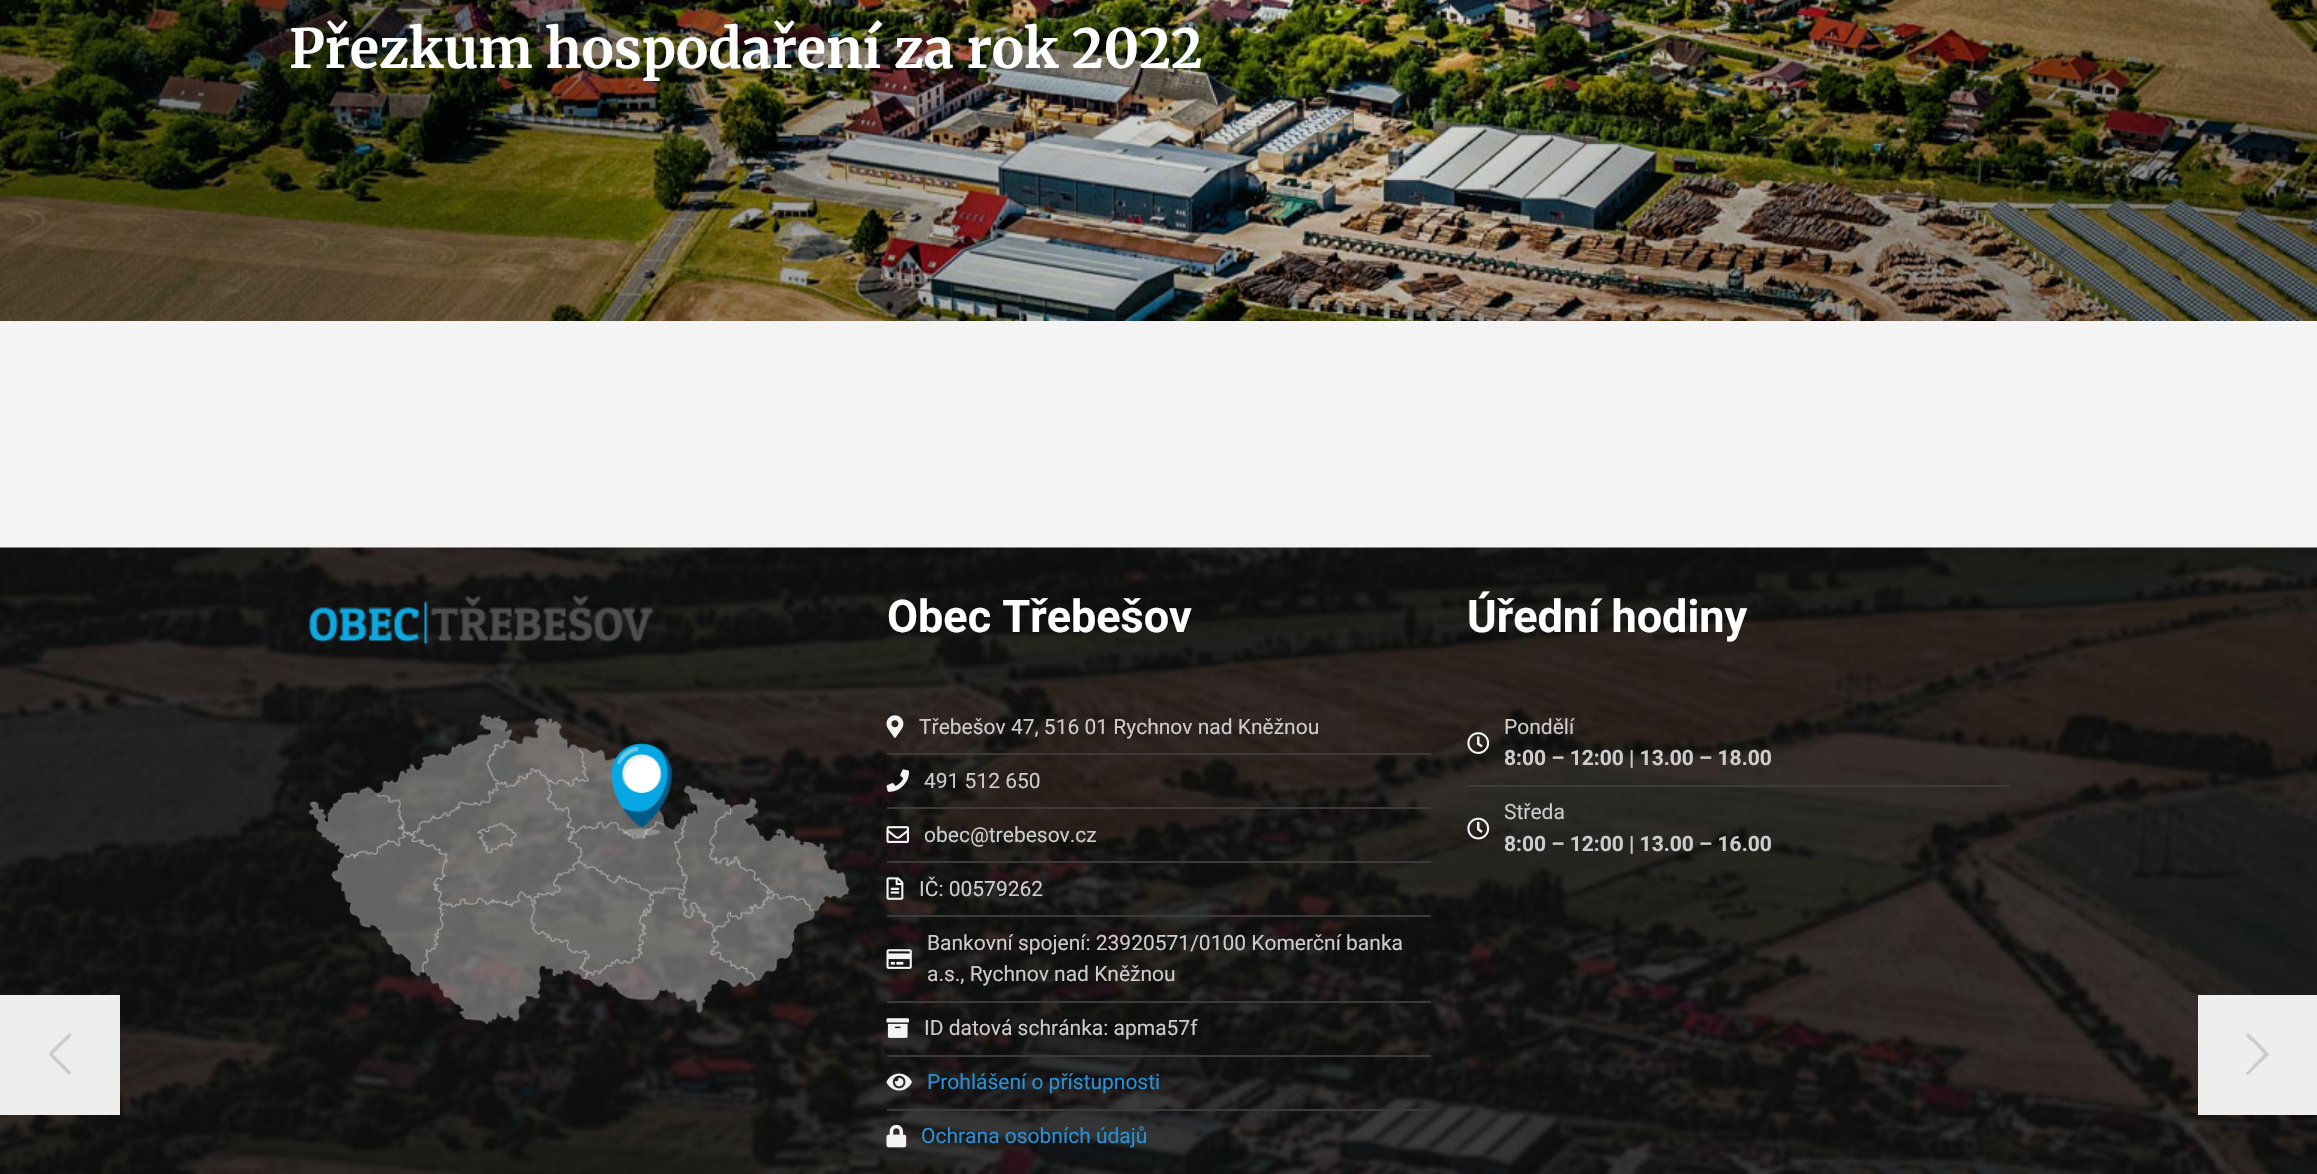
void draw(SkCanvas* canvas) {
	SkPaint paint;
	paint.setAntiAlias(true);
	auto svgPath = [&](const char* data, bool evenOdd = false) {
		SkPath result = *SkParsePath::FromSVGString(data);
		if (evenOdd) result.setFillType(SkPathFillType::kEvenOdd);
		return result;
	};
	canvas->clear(0xffffffff);
	paint.setColor(0xfff4f4f4);
	canvas->drawRect(SkRect::MakeXYWH(0, 321, 2317, 227), paint);
	canvas->drawImageRect(SkImages::DeferredFromEncodedData(SkData::MakeFromFileName("img2.png")), SkRect::MakeXYWH(0, 547, 2317, 627), SkSamplingOptions());
	paint.setColor(0xffeeeeee);
	canvas->drawRect(SkRect::MakeXYWH(0, 995, 120, 120), paint);
	paint.setColor(0xffcccccc);
	canvas->drawPath(svgPath("M71 1072V1073C70 1078 65 1071 65 1071L49 1055V1053C51 1051 69 1033 70 1033C75 1035 65 1042 65 1042L53 1054Z"), paint);
	canvas->drawImageRect(SkImages::DeferredFromEncodedData(SkData::MakeFromFileName("img1.png")), SkRect::MakeXYWH(0, 0, 2317, 321), SkSamplingOptions());
	SkFont f1(fontMgr->matchFamilyStyle("Merriweather", SkFontStyle::Bold()), 54);
	f1.setSubpixel(true);
	paint.setColor(0xffffffff);
	canvas->drawString("Přezkum hospodaření za rok 2022", 289, 68, f1, paint);
	canvas->drawImageRect(SkImages::DeferredFromEncodedData(SkData::MakeFromFileName("img3.png")), SkRect::MakeXYWH(308, 595, 345, 49), SkSamplingOptions());
	canvas->drawImageRect(SkImages::DeferredFromEncodedData(SkData::MakeFromFileName("img4.png")), SkRect::MakeXYWH(308, 714, 542, 311), SkSamplingOptions());
	SkFont f2(fontMgr->matchFamilyStyle("Roboto", SkFontStyle::Bold()), 45);
	f2.setSubpixel(true);
	canvas->drawString("Obec Třebešov", 887, 632, f2, paint);
	canvas->drawImageRect(SkImages::DeferredFromEncodedData(SkData::MakeFromFileName("img5.png")), SkRect::MakeXYWH(886, 715, 18, 23), SkSamplingOptions());
	SkFont f3(fontMgr->matchFamilyStyle("Roboto", SkFontStyle::Normal()), 21);
	f3.setSubpixel(true);
	paint.setColor(0xffcccccc);
	canvas->drawString("Třebešov 47, 516 01 Rychnov nad Kněžnou", 919, 734, f3, paint);
	paint.setColor(0xff3b3b3b);
	canvas->drawRect(SkRect::MakeXYWH(887, 753, 544, 2), paint);
	canvas->drawImageRect(SkImages::DeferredFromEncodedData(SkData::MakeFromFileName("img6.png")), SkRect::MakeXYWH(886, 769, 23, 23), SkSamplingOptions());
	paint.setColor(0xffcccccc);
	canvas->drawString("491 512 650", 924, 788, f3, paint);
	paint.setColor(0xff3b3b3b);
	canvas->drawRect(SkRect::MakeXYWH(887, 807, 544, 2), paint);
	canvas->drawImageRect(SkImages::DeferredFromEncodedData(SkData::MakeFromFileName("img7.png")), SkRect::MakeXYWH(886, 826, 23, 17), SkSamplingOptions());
	paint.setColor(0xffcccccc);
	canvas->drawString("obec@trebesov.cz", 924, 842, f3, paint);
	paint.setColor(0xff3b3b3b);
	canvas->drawRect(SkRect::MakeXYWH(887, 861, 544, 2), paint);
	canvas->drawImageRect(SkImages::DeferredFromEncodedData(SkData::MakeFromFileName("img8.png")), SkRect::MakeXYWH(886, 877, 18, 23), SkSamplingOptions());
	paint.setColor(0xffcccccc);
	canvas->drawString("IČ: 00579262", 919, 896, f3, paint);
	paint.setColor(0xff3b3b3b);
	canvas->drawRect(SkRect::MakeXYWH(887, 915, 544, 2), paint);
	canvas->drawImageRect(SkImages::DeferredFromEncodedData(SkData::MakeFromFileName("img9.png")), SkRect::MakeXYWH(886, 949, 26, 20), SkSamplingOptions());
	paint.setColor(0xffcccccc);
	canvas->drawString("Bankovní spojení: 23920571/0100 Komerční banka", 927, 950, f3, paint);
	canvas->drawString("a.s., Rychnov nad Kněžnou", 927, 981, f3, paint);
	paint.setColor(0xff3b3b3b);
	canvas->drawRect(SkRect::MakeXYWH(887, 1001, 544, 2), paint);
	canvas->drawImageRect(SkImages::DeferredFromEncodedData(SkData::MakeFromFileName("img10.png")), SkRect::MakeXYWH(886, 1018, 23, 20), SkSamplingOptions());
	paint.setColor(0xffcccccc);
	canvas->drawString("ID datová schránka: apma57f", 924, 1035, f3, paint);
	paint.setColor(0xff3b3b3b);
	canvas->drawRect(SkRect::MakeXYWH(887, 1055, 544, 2), paint);
	canvas->drawImageRect(SkImages::DeferredFromEncodedData(SkData::MakeFromFileName("img11.png")), SkRect::MakeXYWH(886, 1073, 26, 18), SkSamplingOptions());
	paint.setColor(0xff2991d6);
	canvas->drawString("Prohlášení o přístupnosti", 927, 1089, f3, paint);
	paint.setColor(0xff3b3b3b);
	canvas->drawRect(SkRect::MakeXYWH(887, 1109, 544, 2), paint);
	canvas->drawImageRect(SkImages::DeferredFromEncodedData(SkData::MakeFromFileName("img12.png")), SkRect::MakeXYWH(886, 1124, 21, 24), SkSamplingOptions());
	paint.setColor(0xff2991d6);
	canvas->drawString("Ochrana osobních údajů", 921, 1143, f3, paint);
	paint.setColor(0xffffffff);
	canvas->drawString("Úřední hodiny", 1467, 632, f2, paint);
	canvas->drawImageRect(SkImages::DeferredFromEncodedData(SkData::MakeFromFileName("img13.png")), SkRect::MakeXYWH(1467, 732, 23, 22), SkSamplingOptions());
	paint.setColor(0xffcccccc);
	canvas->drawString("Pondělí", 1504, 734, f3, paint);
	SkFont f4(fontMgr->matchFamilyStyle("Roboto", SkFontStyle::Bold()), 21);
	f4.setSubpixel(true);
	canvas->drawString("8:00 – 12:00 | 13.00 – 18.00", 1504, 765, f4, paint);
	paint.setColor(0xff3b3b3b);
	canvas->drawRect(SkRect::MakeXYWH(1467, 785, 543, 2), paint);
	canvas->drawImageRect(SkImages::DeferredFromEncodedData(SkData::MakeFromFileName("img14.png")), SkRect::MakeXYWH(1467, 817, 23, 23), SkSamplingOptions());
	paint.setColor(0xffcccccc);
	canvas->drawString("Středa", 1504, 819, f3, paint);
	canvas->drawString("8:00 – 12:00 | 13.00 – 16.00", 1504, 851, f4, paint);
	paint.setColor(0xffeeeeee);
	canvas->drawRect(SkRect::MakeXYWH(2198, 995, 119, 120), paint);
	paint.setColor(0xffcccccc);
	canvas->drawPath(svgPath("M2247 1072L2264 1054L2253 1042C2252 1042 2243 1035 2248 1033C2249 1033 2267 1051 2268 1053L2269 1055L2252 1071C2252 1071 2247 1078 2246 1073Z"), paint);
}
